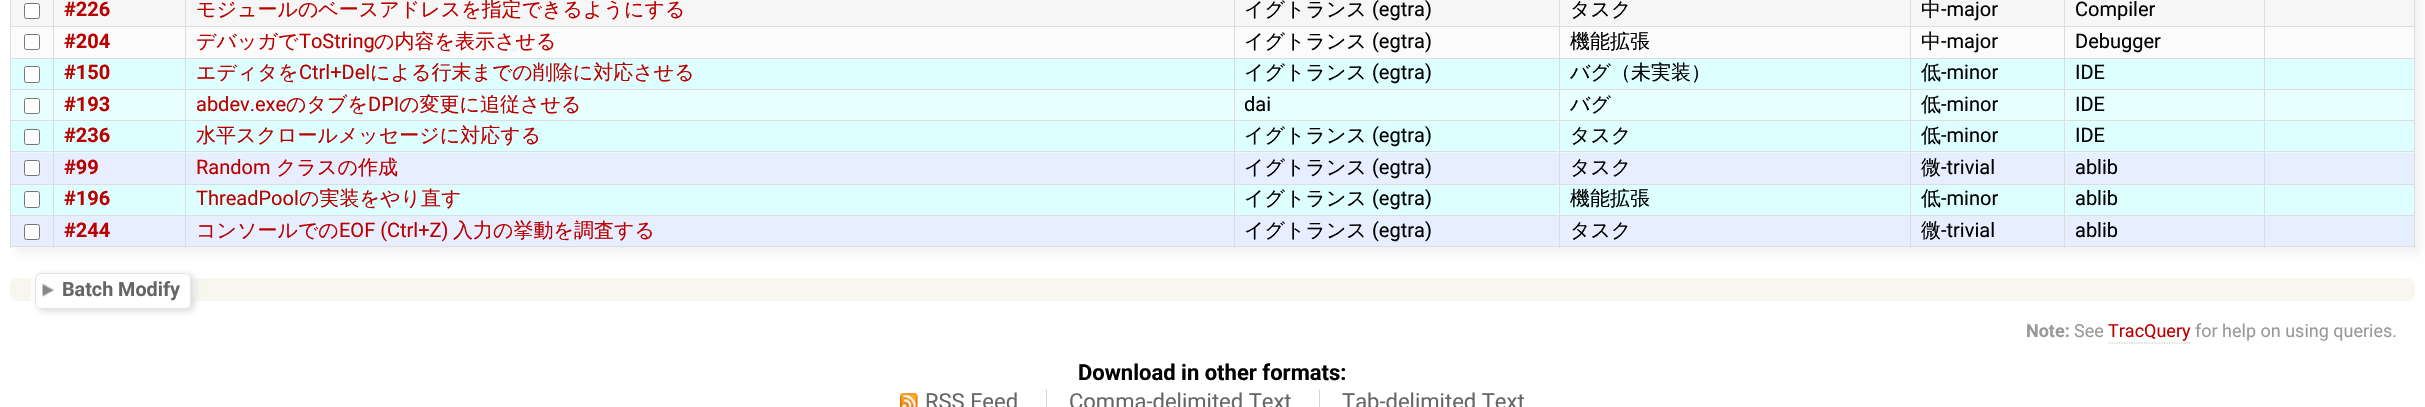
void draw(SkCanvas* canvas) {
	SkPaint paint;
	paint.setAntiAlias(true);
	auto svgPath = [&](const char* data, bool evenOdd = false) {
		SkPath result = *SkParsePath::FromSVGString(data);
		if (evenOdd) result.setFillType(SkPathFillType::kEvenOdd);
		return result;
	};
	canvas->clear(0xffffffff);
	paint.setColor(0xfff2f2f2);
	paint.setMaskFilter(SkMaskFilter::MakeBlur(kNormal_SkBlurStyle, 4));
	canvas->drawRect(SkRect::MakeXYWH(16, -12, 2405, 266), paint);
	paint.setMaskFilter(nullptr);
	paint.setColor(0xfff6f6f6);
	canvas->drawRect(SkRect::MakeXYWH(11, 0, 2403, 26), paint);
	paint.setColor(0xffffffff);
	canvas->drawRoundRect(SkRect::MakeXYWH(24.5, 3.5, 15, 15), 2, 2, paint);
	paint.setStroke(true);
	paint.setStrokeWidth(1);
	paint.setColor(0xff767676);
	canvas->drawRoundRect(SkRect::MakeXYWH(24.5, 3.5, 15, 15), 2, 2, paint);
	paint.setStroke(false);
	paint.setColor(0xfffbfbfb);
	canvas->drawRect(SkRect::MakeXYWH(16, 27, 2398, 31), paint);
	paint.setColor(0xffdddddd);
	canvas->drawRect(SkRect::MakeXYWH(2264, 26, 151, 1), paint);
	canvas->drawRect(SkRect::MakeXYWH(10, 58, 2405, 1), paint);
	paint.setColor(0xffddffff);
	canvas->drawRect(SkRect::MakeXYWH(11, 59, 2403, 30), paint);
	paint.setColor(0xffdddddd);
	canvas->drawRect(SkRect::MakeXYWH(2264, 89, 151, 1), paint);
	paint.setColor(0xffe7ffff);
	canvas->drawRect(SkRect::MakeXYWH(11, 90, 2403, 30), paint);
	paint.setColor(0xffdddddd);
	canvas->drawRect(SkRect::MakeXYWH(2264, 120, 151, 1), paint);
	paint.setColor(0xffddffff);
	canvas->drawRect(SkRect::MakeXYWH(11, 121, 2403, 32), paint);
	paint.setColor(0xffdddddd);
	canvas->drawRect(SkRect::MakeXYWH(2264, 151, 151, 1), paint);
	paint.setColor(0xffe7eeff);
	canvas->drawRect(SkRect::MakeXYWH(11, 153, 2403, 31), paint);
	paint.setColor(0xffdddddd);
	canvas->drawRect(SkRect::MakeXYWH(2264, 184, 151, 1), paint);
	paint.setColor(0xffddffff);
	canvas->drawRect(SkRect::MakeXYWH(11, 185, 2403, 30), paint);
	paint.setColor(0xffdddddd);
	canvas->drawRect(SkRect::MakeXYWH(2264, 215, 151, 1), paint);
	paint.setColor(0xffe7eeff);
	canvas->drawRect(SkRect::MakeXYWH(11, 216, 2403, 30), paint);
	paint.setColor(0xffdddddd);
	canvas->drawRect(SkRect::MakeXYWH(2414, 215, 1, 33), paint);
	canvas->drawRect(SkRect::MakeXYWH(2264, 246, 151, 1), paint);
	canvas->drawRect(SkRect::MakeXYWH(2264, 215, 1, 33), paint);
	canvas->drawRect(SkRect::MakeXYWH(2064, 215, 201, 1), paint);
	canvas->drawRect(SkRect::MakeXYWH(2264, 184, 1, 32), paint);
	canvas->drawRect(SkRect::MakeXYWH(2064, 184, 201, 1), paint);
	canvas->drawRect(SkRect::MakeXYWH(2264, 151, 1, 34), paint);
	canvas->drawRect(SkRect::MakeXYWH(2064, 151, 201, 1), paint);
	canvas->drawRect(SkRect::MakeXYWH(2264, 120, 1, 33), paint);
	canvas->drawRect(SkRect::MakeXYWH(2064, 120, 201, 1), paint);
	canvas->drawRect(SkRect::MakeXYWH(2264, 89, 1, 32), paint);
	canvas->drawRect(SkRect::MakeXYWH(2064, 89, 201, 1), paint);
	canvas->drawRect(SkRect::MakeXYWH(2264, 58, 1, 32), paint);
	canvas->drawRect(SkRect::MakeXYWH(2264, 26, 1, 33), paint);
	canvas->drawRect(SkRect::MakeXYWH(2064, 26, 201, 1), paint);
	canvas->drawRect(SkRect::MakeXYWH(2064, 246, 201, 1), paint);
	canvas->drawRect(SkRect::MakeXYWH(2064, 215, 1, 33), paint);
	canvas->drawRect(SkRect::MakeXYWH(1910, 215, 155, 1), paint);
	canvas->drawRect(SkRect::MakeXYWH(2064, 184, 1, 32), paint);
	canvas->drawRect(SkRect::MakeXYWH(1910, 184, 155, 1), paint);
	canvas->drawRect(SkRect::MakeXYWH(2064, 151, 1, 34), paint);
	canvas->drawRect(SkRect::MakeXYWH(1910, 151, 155, 1), paint);
	canvas->drawRect(SkRect::MakeXYWH(2064, 120, 1, 33), paint);
	canvas->drawRect(SkRect::MakeXYWH(1910, 120, 155, 1), paint);
	canvas->drawRect(SkRect::MakeXYWH(2064, 89, 1, 32), paint);
	canvas->drawRect(SkRect::MakeXYWH(1910, 89, 155, 1), paint);
	canvas->drawRect(SkRect::MakeXYWH(2064, 58, 1, 32), paint);
	canvas->drawRect(SkRect::MakeXYWH(2064, 26, 1, 33), paint);
	canvas->drawRect(SkRect::MakeXYWH(1910, 26, 155, 1), paint);
	canvas->drawRect(SkRect::MakeXYWH(1910, 246, 155, 1), paint);
	canvas->drawRect(SkRect::MakeXYWH(1910, 215, 1, 33), paint);
	canvas->drawRect(SkRect::MakeXYWH(1559, 215, 352, 1), paint);
	canvas->drawRect(SkRect::MakeXYWH(1910, 184, 1, 32), paint);
	canvas->drawRect(SkRect::MakeXYWH(1559, 184, 352, 1), paint);
	canvas->drawRect(SkRect::MakeXYWH(1910, 151, 1, 34), paint);
	canvas->drawRect(SkRect::MakeXYWH(1559, 151, 352, 1), paint);
	canvas->drawRect(SkRect::MakeXYWH(1910, 120, 1, 33), paint);
	canvas->drawRect(SkRect::MakeXYWH(1559, 120, 352, 1), paint);
	canvas->drawRect(SkRect::MakeXYWH(1910, 89, 1, 32), paint);
	canvas->drawRect(SkRect::MakeXYWH(1559, 89, 352, 1), paint);
	canvas->drawRect(SkRect::MakeXYWH(1910, 58, 1, 32), paint);
	canvas->drawRect(SkRect::MakeXYWH(1910, 26, 1, 33), paint);
	canvas->drawRect(SkRect::MakeXYWH(1559, 26, 352, 1), paint);
	canvas->drawRect(SkRect::MakeXYWH(1559, 246, 352, 1), paint);
	canvas->drawRect(SkRect::MakeXYWH(1559, 215, 1, 33), paint);
	canvas->drawRect(SkRect::MakeXYWH(1234, 215, 326, 1), paint);
	canvas->drawRect(SkRect::MakeXYWH(1559, 184, 1, 32), paint);
	canvas->drawRect(SkRect::MakeXYWH(1234, 184, 326, 1), paint);
	canvas->drawRect(SkRect::MakeXYWH(1559, 151, 1, 34), paint);
	canvas->drawRect(SkRect::MakeXYWH(1234, 151, 326, 1), paint);
	canvas->drawRect(SkRect::MakeXYWH(1559, 120, 1, 33), paint);
	canvas->drawRect(SkRect::MakeXYWH(1234, 120, 326, 1), paint);
	canvas->drawRect(SkRect::MakeXYWH(1559, 89, 1, 32), paint);
	canvas->drawRect(SkRect::MakeXYWH(1234, 89, 326, 1), paint);
	canvas->drawRect(SkRect::MakeXYWH(1559, 58, 1, 32), paint);
	canvas->drawRect(SkRect::MakeXYWH(1559, 26, 1, 33), paint);
	canvas->drawRect(SkRect::MakeXYWH(1234, 26, 326, 1), paint);
	canvas->drawRect(SkRect::MakeXYWH(1234, 246, 326, 1), paint);
	canvas->drawRect(SkRect::MakeXYWH(1234, 215, 1, 33), paint);
	canvas->drawRect(SkRect::MakeXYWH(185, 215, 1050, 1), paint);
	canvas->drawRect(SkRect::MakeXYWH(1234, 184, 1, 32), paint);
	canvas->drawRect(SkRect::MakeXYWH(185, 184, 1050, 1), paint);
	canvas->drawRect(SkRect::MakeXYWH(1234, 151, 1, 34), paint);
	canvas->drawRect(SkRect::MakeXYWH(185, 151, 1050, 1), paint);
	canvas->drawRect(SkRect::MakeXYWH(1234, 120, 1, 33), paint);
	canvas->drawRect(SkRect::MakeXYWH(185, 120, 1050, 1), paint);
	canvas->drawRect(SkRect::MakeXYWH(1234, 89, 1, 32), paint);
	canvas->drawRect(SkRect::MakeXYWH(185, 89, 1050, 1), paint);
	canvas->drawRect(SkRect::MakeXYWH(1234, 58, 1, 32), paint);
	canvas->drawRect(SkRect::MakeXYWH(1234, 26, 1, 33), paint);
	canvas->drawRect(SkRect::MakeXYWH(185, 26, 1050, 1), paint);
	canvas->drawRect(SkRect::MakeXYWH(185, 246, 1050, 1), paint);
	canvas->drawRect(SkRect::MakeXYWH(185, 215, 1, 33), paint);
	canvas->drawRect(SkRect::MakeXYWH(53, 215, 133, 1), paint);
	canvas->drawRect(SkRect::MakeXYWH(185, 184, 1, 32), paint);
	canvas->drawRect(SkRect::MakeXYWH(53, 184, 133, 1), paint);
	canvas->drawRect(SkRect::MakeXYWH(185, 151, 1, 34), paint);
	canvas->drawRect(SkRect::MakeXYWH(53, 151, 133, 1), paint);
	canvas->drawRect(SkRect::MakeXYWH(185, 120, 1, 33), paint);
	canvas->drawRect(SkRect::MakeXYWH(53, 120, 133, 1), paint);
	canvas->drawRect(SkRect::MakeXYWH(185, 89, 1, 32), paint);
	canvas->drawRect(SkRect::MakeXYWH(53, 89, 133, 1), paint);
	canvas->drawRect(SkRect::MakeXYWH(185, 58, 1, 32), paint);
	canvas->drawRect(SkRect::MakeXYWH(185, 26, 1, 33), paint);
	canvas->drawRect(SkRect::MakeXYWH(53, 26, 133, 1), paint);
	canvas->drawRect(SkRect::MakeXYWH(53, 246, 133, 1), paint);
	canvas->drawRect(SkRect::MakeXYWH(53, 215, 1, 33), paint);
	canvas->drawRect(SkRect::MakeXYWH(10, 215, 44, 1), paint);
	canvas->drawRect(SkRect::MakeXYWH(53, 184, 1, 32), paint);
	canvas->drawRect(SkRect::MakeXYWH(10, 184, 44, 1), paint);
	canvas->drawRect(SkRect::MakeXYWH(53, 151, 1, 34), paint);
	canvas->drawRect(SkRect::MakeXYWH(10, 151, 44, 1), paint);
	canvas->drawRect(SkRect::MakeXYWH(53, 120, 1, 33), paint);
	canvas->drawRect(SkRect::MakeXYWH(10, 120, 44, 1), paint);
	canvas->drawRect(SkRect::MakeXYWH(53, 89, 1, 32), paint);
	canvas->drawRect(SkRect::MakeXYWH(10, 89, 44, 1), paint);
	canvas->drawRect(SkRect::MakeXYWH(53, 58, 1, 32), paint);
	canvas->drawRect(SkRect::MakeXYWH(53, 26, 1, 33), paint);
	canvas->drawRect(SkRect::MakeXYWH(10, 26, 44, 1), paint);
	canvas->drawRect(SkRect::MakeXYWH(53, 0, 1, 28), paint);
	SkFont f1(fontMgr->matchFamilyStyle("Roboto", SkFontStyle::Bold()), 20);
	f1.setSubpixel(true);
	paint.setColor(0xffbb0000);
	canvas->drawString("#226", 64, 16, f1, paint);
	paint.setColor(0xffdddddd);
	canvas->drawRect(SkRect::MakeXYWH(185, 0, 1, 28), paint);
	SkFont f2(fontMgr->matchFamilyStyle("WenQuanYi Zen Hei", SkFontStyle(500, SkFontStyle::kNormal_Width, SkFontStyle::kUpright_Slant)), 20);
	f2.setSubpixel(true);
	paint.setColor(0xffbb0000);
	canvas->drawString("モジュールのベースアドレスを指定できるようにする", 196, 16, f2, paint);
	paint.setColor(0xffdddddd);
	canvas->drawRect(SkRect::MakeXYWH(1234, 0, 1, 28), paint);
	paint.setColor(0xff000000);
	canvas->drawString("イグトランス", 1244, 16, f2, paint);
	SkFont f3(fontMgr->matchFamilyStyle("Roboto", SkFontStyle::Normal()), 20);
	f3.setSubpixel(true);
	canvas->drawString("(egtra)", 1372, 16, f3, paint);
	paint.setColor(0xffdddddd);
	canvas->drawRect(SkRect::MakeXYWH(1559, 0, 1, 28), paint);
	paint.setColor(0xff000000);
	canvas->drawString("タスク", 1570, 16, f2, paint);
	paint.setColor(0xffdddddd);
	canvas->drawRect(SkRect::MakeXYWH(1910, 0, 1, 28), paint);
	paint.setColor(0xff000000);
	canvas->drawString("中", 1921, 16, f2, paint);
	canvas->drawString("-major", 1941, 16, f3, paint);
	paint.setColor(0xffdddddd);
	canvas->drawRect(SkRect::MakeXYWH(2064, 0, 1, 28), paint);
	paint.setColor(0xff000000);
	canvas->drawString("Compiler", 2075, 16, f3, paint);
	paint.setColor(0xffdddddd);
	canvas->drawRect(SkRect::MakeXYWH(2264, 0, 1, 28), paint);
	canvas->drawRect(SkRect::MakeXYWH(10, 246, 44, 1), paint);
	canvas->drawRect(SkRect::MakeXYWH(10, 215, 1, 33), paint);
	canvas->drawRect(SkRect::MakeXYWH(10, 184, 1, 32), paint);
	canvas->drawRect(SkRect::MakeXYWH(10, 151, 1, 34), paint);
	canvas->drawRect(SkRect::MakeXYWH(10, 120, 1, 33), paint);
	canvas->drawRect(SkRect::MakeXYWH(10, 58, 1, 63), paint);
	canvas->drawRect(SkRect::MakeXYWH(10, 0, 1, 59), paint);
	paint.setColor(0xffffffff);
	canvas->drawRoundRect(SkRect::MakeXYWH(24.5, 34.5, 15, 15), 2, 2, paint);
	paint.setStroke(true);
	paint.setColor(0xff767676);
	canvas->drawRoundRect(SkRect::MakeXYWH(24.5, 34.5, 15, 15), 2, 2, paint);
	paint.setStroke(false);
	paint.setColor(0xffbb0000);
	canvas->drawString("#204", 64, 48, f1, paint);
	canvas->drawString("デバッガで", 196, 48, f2, paint);
	canvas->drawString("ToString", 299, 48, f3, paint);
	canvas->drawString("の内容を表示させる", 374, 48, f2, paint);
	paint.setColor(0xff000000);
	canvas->drawString("イグトランス", 1244, 48, f2, paint);
	canvas->drawString("(egtra)", 1372, 48, f3, paint);
	canvas->drawString("機能拡張", 1570, 48, f2, paint);
	canvas->drawString("中", 1921, 48, f2, paint);
	canvas->drawString("-major", 1941, 48, f3, paint);
	canvas->drawString("Debugger", 2075, 48, f3, paint);
	paint.setColor(0xffdddddd);
	canvas->drawRect(SkRect::MakeXYWH(2414, 184, 1, 32), paint);
	canvas->drawRect(SkRect::MakeXYWH(2414, 151, 1, 34), paint);
	canvas->drawRect(SkRect::MakeXYWH(2414, 120, 1, 33), paint);
	canvas->drawRect(SkRect::MakeXYWH(2414, 58, 1, 63), paint);
	canvas->drawRect(SkRect::MakeXYWH(2414, 0, 1, 59), paint);
	paint.setColor(0xffffffff);
	canvas->drawRoundRect(SkRect::MakeXYWH(24.5, 66.5, 15, 16), 2, 2, paint);
	paint.setStroke(true);
	paint.setColor(0xff767676);
	canvas->drawRoundRect(SkRect::MakeXYWH(24.5, 66.5, 15, 16), 2, 2, paint);
	paint.setStroke(false);
	paint.setColor(0xffbb0000);
	canvas->drawString("#150", 64, 79, f1, paint);
	canvas->drawString("エディタを", 196, 79, f2, paint);
	canvas->drawString("Ctrl+Del", 299, 79, f3, paint);
	canvas->drawString("による行末までの削除に対応させる", 370, 79, f2, paint);
	paint.setColor(0xff000000);
	canvas->drawString("イグトランス", 1244, 79, f2, paint);
	canvas->drawString("(egtra)", 1372, 79, f3, paint);
	canvas->drawString("バグ（未実装）", 1570, 79, f2, paint);
	canvas->drawString("低", 1921, 79, f2, paint);
	canvas->drawString("-minor", 1941, 79, f3, paint);
	canvas->drawString("IDE", 2075, 79, f3, paint);
	paint.setColor(0xffffffff);
	canvas->drawRoundRect(SkRect::MakeXYWH(24.5, 98.5, 15, 15), 2, 2, paint);
	paint.setStroke(true);
	paint.setColor(0xff767676);
	canvas->drawRoundRect(SkRect::MakeXYWH(24.5, 98.5, 15, 15), 2, 2, paint);
	paint.setStroke(false);
	paint.setColor(0xffbb0000);
	canvas->drawString("#193", 64, 111, f1, paint);
	canvas->drawString("abdev.exe", 196, 111, f3, paint);
	canvas->drawString("のタブを", 286, 111, f2, paint);
	canvas->drawString("DPI", 368, 111, f3, paint);
	canvas->drawString("の変更に追従させる", 399, 111, f2, paint);
	paint.setColor(0xff000000);
	canvas->drawString("dai", 1244, 111, f3, paint);
	canvas->drawString("バグ", 1570, 111, f2, paint);
	canvas->drawString("低", 1921, 111, f2, paint);
	canvas->drawString("-minor", 1941, 111, f3, paint);
	canvas->drawString("IDE", 2075, 111, f3, paint);
	paint.setColor(0xffffffff);
	canvas->drawRoundRect(SkRect::MakeXYWH(24.5, 129.5, 15, 15), 2, 2, paint);
	paint.setStroke(true);
	paint.setColor(0xff767676);
	canvas->drawRoundRect(SkRect::MakeXYWH(24.5, 129.5, 15, 15), 2, 2, paint);
	paint.setStroke(false);
	paint.setColor(0xffbb0000);
	canvas->drawString("#236", 64, 142, f1, paint);
	canvas->drawString("水平スクロールメッセージに対応する", 196, 142, f2, paint);
	paint.setColor(0xff000000);
	canvas->drawString("イグトランス", 1244, 142, f2, paint);
	canvas->drawString("(egtra)", 1372, 142, f3, paint);
	canvas->drawString("タスク", 1570, 142, f2, paint);
	canvas->drawString("低", 1921, 142, f2, paint);
	canvas->drawString("-minor", 1941, 142, f3, paint);
	canvas->drawString("IDE", 2075, 142, f3, paint);
	paint.setColor(0xffffffff);
	canvas->drawRoundRect(SkRect::MakeXYWH(24.5, 160.5, 15, 15), 2, 2, paint);
	paint.setStroke(true);
	paint.setColor(0xff767676);
	canvas->drawRoundRect(SkRect::MakeXYWH(24.5, 160.5, 15, 15), 2, 2, paint);
	paint.setStroke(false);
	paint.setColor(0xffbb0000);
	canvas->drawString("#99", 64, 174, f1, paint);
	canvas->drawString("Random", 196, 174, f3, paint);
	canvas->drawString("クラスの作成", 276, 174, f2, paint);
	paint.setColor(0xff000000);
	canvas->drawString("イグトランス", 1244, 174, f2, paint);
	canvas->drawString("(egtra)", 1372, 174, f3, paint);
	canvas->drawString("タスク", 1570, 174, f2, paint);
	canvas->drawString("微", 1921, 174, f2, paint);
	canvas->drawString("-trivial", 1941, 174, f3, paint);
	canvas->drawString("ablib", 2075, 174, f3, paint);
	paint.setColor(0xffffffff);
	canvas->drawRoundRect(SkRect::MakeXYWH(24.5, 191.5, 15, 16), 2, 2, paint);
	paint.setStroke(true);
	paint.setColor(0xff767676);
	canvas->drawRoundRect(SkRect::MakeXYWH(24.5, 191.5, 15, 16), 2, 2, paint);
	paint.setStroke(false);
	paint.setColor(0xffbb0000);
	canvas->drawString("#196", 64, 205, f1, paint);
	canvas->drawString("ThreadPool", 196, 205, f3, paint);
	canvas->drawString("の実装をやり直す", 299, 205, f2, paint);
	paint.setColor(0xff000000);
	canvas->drawString("イグトランス", 1244, 205, f2, paint);
	canvas->drawString("(egtra)", 1372, 205, f3, paint);
	canvas->drawString("機能拡張", 1570, 205, f2, paint);
	canvas->drawString("低", 1921, 205, f2, paint);
	canvas->drawString("-minor", 1941, 205, f3, paint);
	canvas->drawString("ablib", 2075, 205, f3, paint);
	paint.setColor(0xffffffff);
	canvas->drawRoundRect(SkRect::MakeXYWH(24.5, 224.5, 15, 15), 2, 2, paint);
	paint.setStroke(true);
	paint.setColor(0xff767676);
	canvas->drawRoundRect(SkRect::MakeXYWH(24.5, 224.5, 15, 15), 2, 2, paint);
	paint.setStroke(false);
	paint.setColor(0xffbb0000);
	canvas->drawString("#244", 64, 237, f1, paint);
	canvas->drawString("コンソールでの", 196, 237, f2, paint);
	canvas->drawString("EOF (Ctrl+Z)", 339, 237, f3, paint);
	canvas->drawString("入力の挙動を調査する", 453, 237, f2, paint);
	paint.setColor(0xff000000);
	canvas->drawString("イグトランス", 1244, 237, f2, paint);
	canvas->drawString("(egtra)", 1372, 237, f3, paint);
	canvas->drawString("タスク", 1570, 237, f2, paint);
	canvas->drawString("微", 1921, 237, f2, paint);
	canvas->drawString("-trivial", 1941, 237, f3, paint);
	canvas->drawString("ablib", 2075, 237, f3, paint);
	paint.setColor(0xfff7f7f0);
	canvas->drawRoundRect(SkRect::MakeXYWH(10, 278, 2405, 23), 8, 8, paint);
	paint.setColor(0xffffffff);
	canvas->drawRect(SkRect::MakeXYWH(31, 278, 164, 23), paint);
	canvas->save();
	canvas->clipPath(svgPath("M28 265H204V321H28ZM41 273H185C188.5 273 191 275.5 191 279V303C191 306.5 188.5 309 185 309H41C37.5 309 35 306.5 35 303V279C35 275.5 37.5 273 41 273Z", true), true);
	paint.setColor(0xffd7d7d7);
	paint.setMaskFilter(SkMaskFilter::MakeBlur(kNormal_SkBlurStyle, 3));
	canvas->drawRoundRect(SkRect::MakeXYWH(38, 275, 156, 36), 6, 6, paint);
	paint.setMaskFilter(nullptr);
	canvas->restore();
	canvas->drawImageRect(SkImages::DeferredFromEncodedData(SkData::MakeFromFileName("img1.png")), SkRect::MakeXYWH(42, 283, 12, 14), SkSamplingOptions());
	paint.setStroke(true);
	paint.setColor(0xffe4e4e4);
	canvas->drawRoundRect(SkRect::MakeXYWH(35.5, 273.5, 155, 35), 5.5, 5.5, paint);
	SkFont f4(fontMgr->matchFamilyStyle("Roboto", SkFontStyle::Bold()), 19.75);
	f4.setSubpixel(true);
	paint.setStroke(false);
	paint.setColor(0xff666666);
	canvas->drawString("Batch Modify", 62, 296, f4, paint);
	SkFont f5(fontMgr->matchFamilyStyle("Roboto", SkFontStyle::Bold()), 18);
	f5.setSubpixel(true);
	paint.setColor(0xff999999);
	canvas->drawString("Note:", 2026, 337, f5, paint);
	SkFont f6(fontMgr->matchFamilyStyle("Roboto", SkFontStyle::Normal()), 18);
	f6.setSubpixel(true);
	canvas->drawString("See", 2074, 337, f6, paint);
	paint.setColor(0xffbb0000);
	canvas->drawString("TracQuery", 2108, 337, f6, paint);
	paint.setStroke(true);
	paint.setStrokeWidth(1.2);
	paint.setColor(0xffbbbbbb);
	paint.setPathEffect(SkDashPathEffect::Make({{1.25f, 1.25f}}, 0));
	canvas->drawPath(svgPath("M2109 343H2191"), paint);
	paint.setPathEffect(nullptr);
	paint.setStroke(false);
	paint.setColor(0xff999999);
	canvas->drawString("for help on using queries.", 2195, 337, f6, paint);
	SkFont f7(fontMgr->matchFamilyStyle("Roboto", SkFontStyle::Bold()), 22);
	f7.setSubpixel(true);
	paint.setColor(0xff000000);
	canvas->drawString("Download in other formats:", 1078, 380, f7, paint);
	canvas->drawImageRect(SkImages::DeferredFromEncodedData(SkData::MakeFromFileName("img2.png")), SkRect::MakeXYWH(900, 393, 18, 14), SkSamplingOptions());
	SkFont f8(fontMgr->matchFamilyStyle("Roboto", SkFontStyle::Normal()), 22);
	f8.setSubpixel(true);
	paint.setColor(0xff666666);
	canvas->drawString("RSS Feed", 925, 409, f8, paint);
	paint.setColor(0xffd7d7d7);
	canvas->drawRect(SkRect::MakeXYWH(1046, 389, 1, 18), paint);
	paint.setColor(0xff666666);
	canvas->drawString("Comma-delimited Text", 1069, 409, f8, paint);
	paint.setColor(0xffd7d7d7);
	canvas->drawRect(SkRect::MakeXYWH(1319, 389, 1, 18), paint);
	paint.setColor(0xff666666);
	canvas->drawString("Tab-delimited Text", 1342, 409, f8, paint);
}
